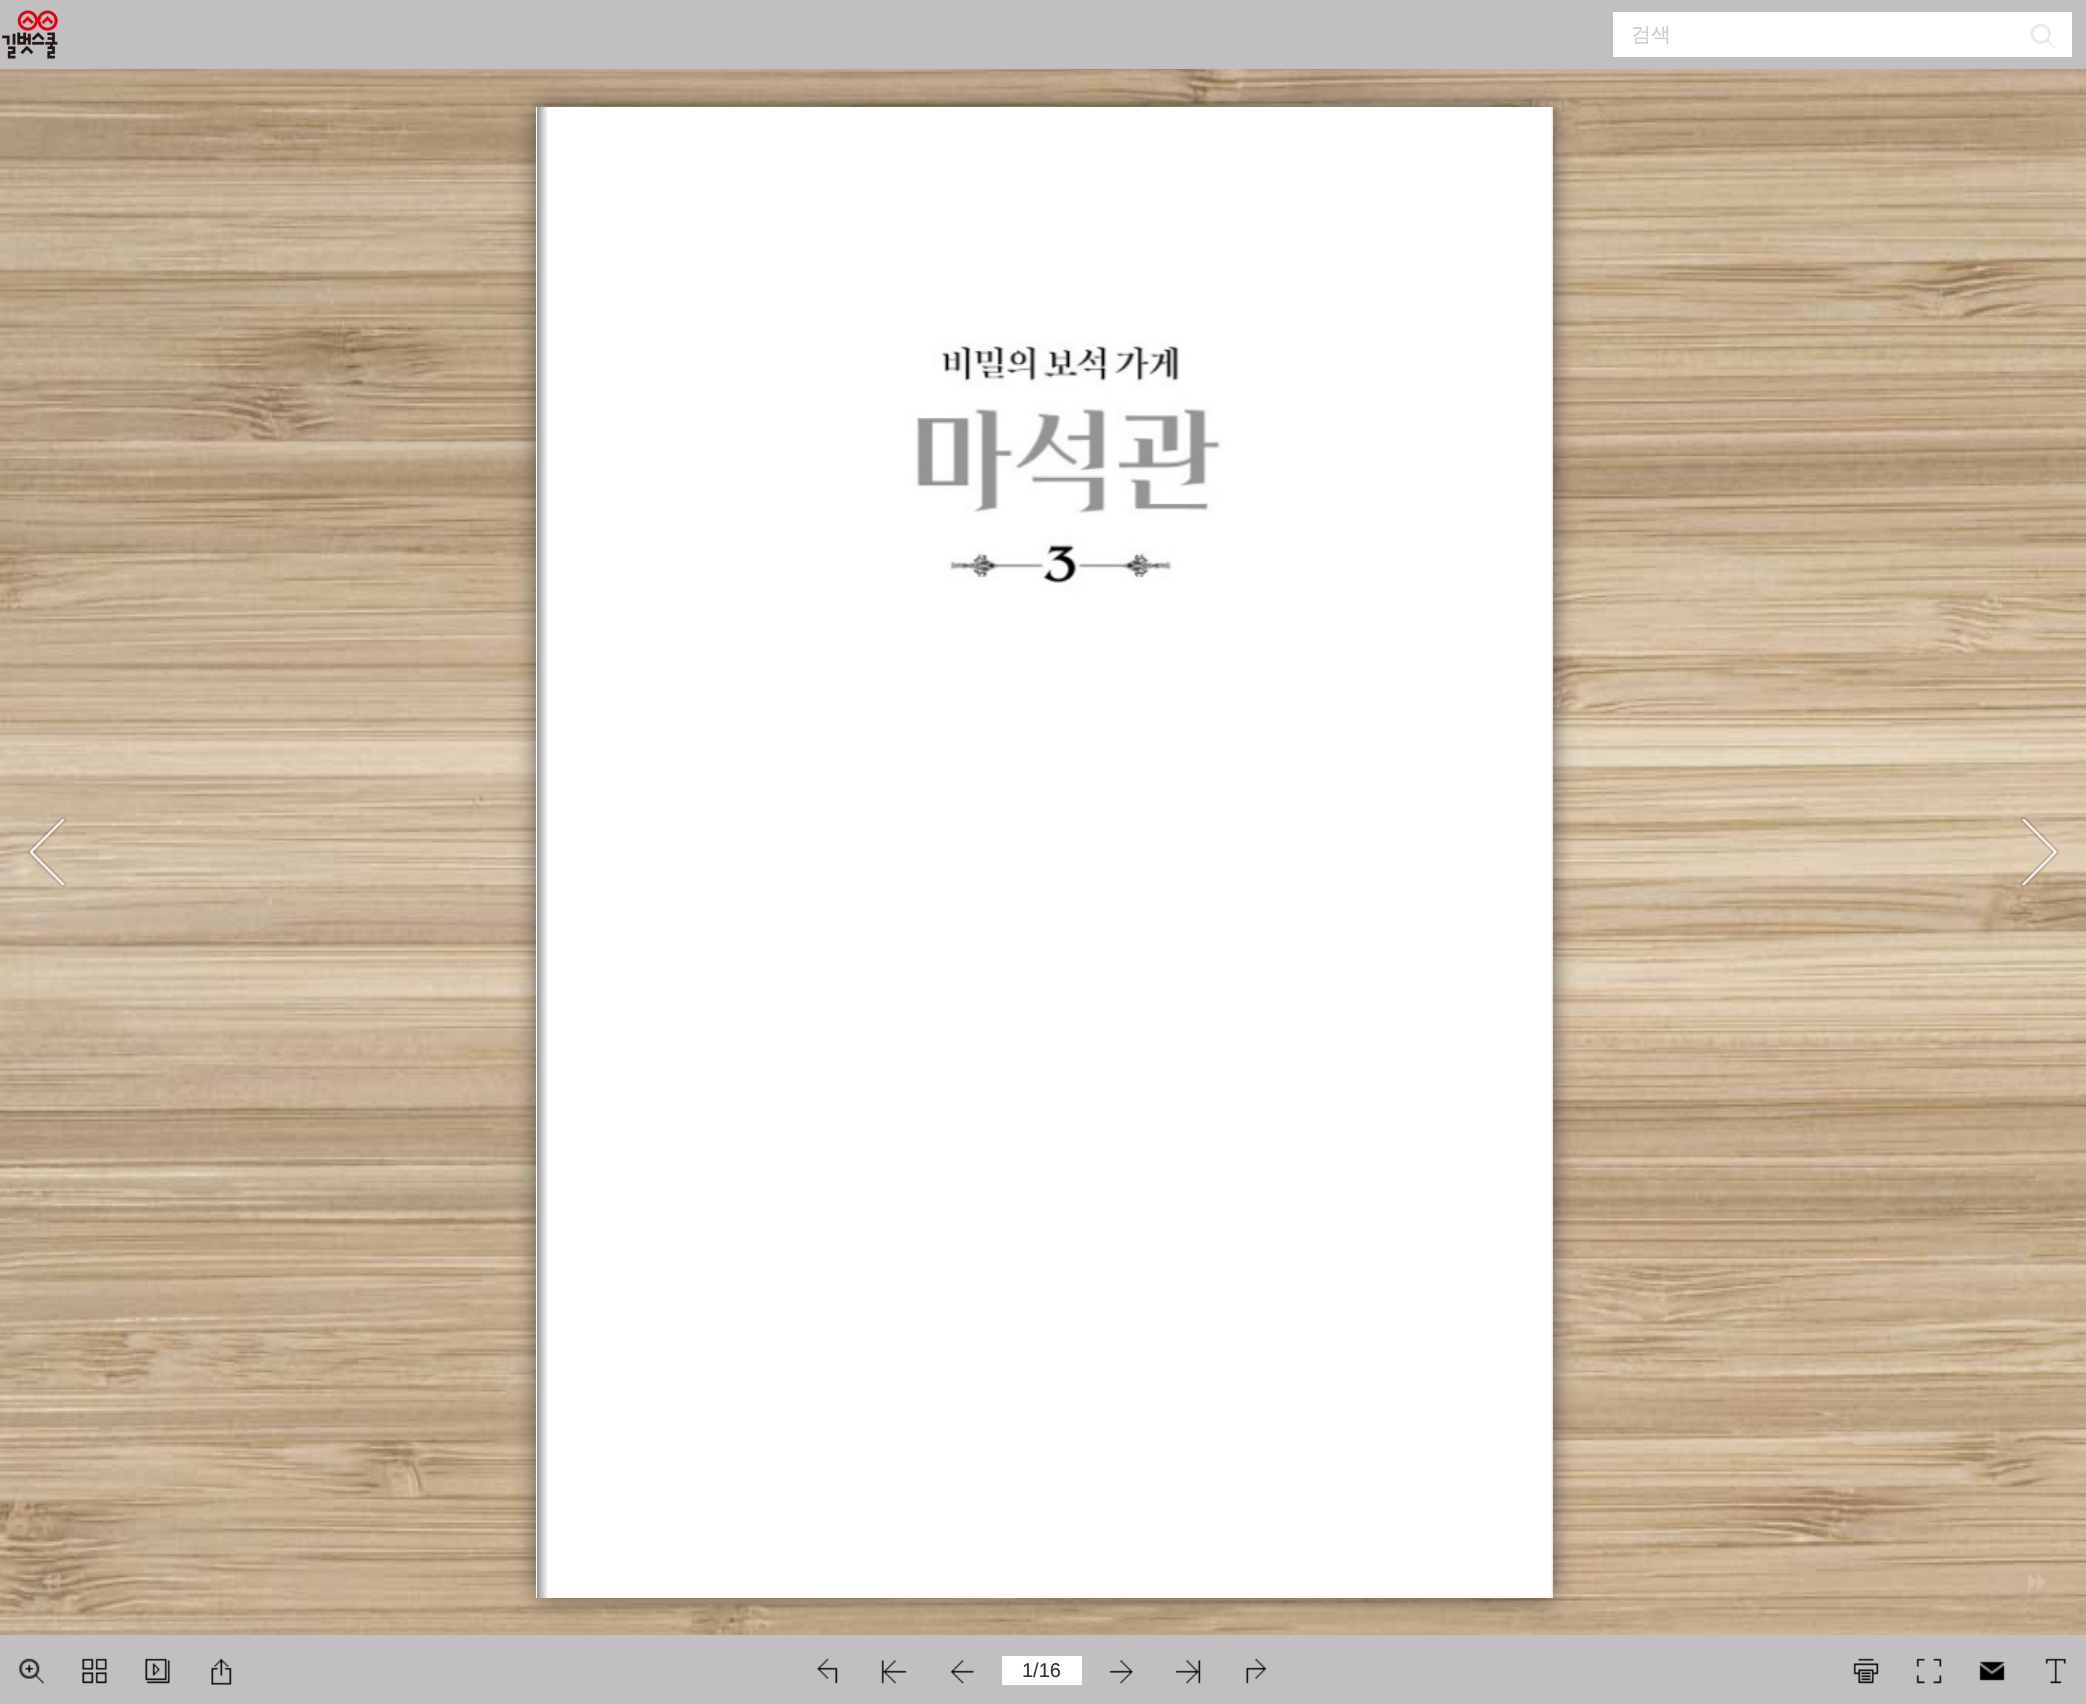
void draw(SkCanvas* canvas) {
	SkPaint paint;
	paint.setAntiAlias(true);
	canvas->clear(0xffffffff);
	paint.setColor(0xffc0c0c0);
	canvas->drawRect(SkRect::MakeXYWH(0, 0, 2086, 69), paint);
	canvas->drawImageRect(SkImages::DeferredFromEncodedData(SkData::MakeFromFileName("img1.png")), SkRect::MakeXYWH(2, 10, 56, 49), SkSamplingOptions());
	paint.setColor(0xffffffff);
	canvas->drawRect(SkRect::MakeXYWH(1613, 12, 459, 45), paint);
	SkFont f1(fontMgr->matchFamilyStyle("WenQuanYi Zen Hei", SkFontStyle(500, SkFontStyle::kNormal_Width, SkFontStyle::kUpright_Slant)), 20);
	f1.setSubpixel(true);
	paint.setColor(0xffcccccc);
	canvas->drawString("검색", 1631, 41, f1, paint);
	canvas->drawImageRect(SkImages::DeferredFromEncodedData(SkData::MakeFromFileName("img2.png")), SkRect::MakeXYWH(2030, 24, 26, 25), SkSamplingOptions());
	canvas->drawImageRect(SkImages::DeferredFromEncodedData(SkData::MakeFromFileName("img3.png")), SkRect::MakeXYWH(0, 69, 2086, 1566), SkSamplingOptions());
	canvas->drawImageRect(SkImages::DeferredFromEncodedData(SkData::MakeFromFileName("img4.png")), SkRect::MakeXYWH(28, 817, 39, 70), SkSamplingOptions());
	paint.setColor(0xb3282828);
	paint.setMaskFilter(SkMaskFilter::MakeBlur(kNormal_SkBlurStyle, 11));
	canvas->drawRect(SkRect::MakeXYWH(537, 107, 1016, 1491), paint);
	paint.setMaskFilter(nullptr);
	canvas->drawImageRect(SkImages::DeferredFromEncodedData(SkData::MakeFromFileName("img5.png")), SkRect::MakeXYWH(536, 107, 1, 1491), SkSamplingOptions());
	{
		const SkColor colors[] = {0xff8a8a8a, 0xffffffff};
		const float stops[] = {0, 1};
		const SkPoint ends[] = {{536, 852}, {548, 852}};
		paint.setShader(SkGradientShader::MakeLinear(ends, colors, stops, 2, SkTileMode::kClamp));
		paint.setAlpha(255);
	}
	canvas->drawRect(SkRect::MakeXYWH(537, 107, 12, 1491), paint);
	paint.setShader(nullptr);
	paint.setColor(0xffe8e8e8);
	canvas->drawRect(SkRect::MakeXYWH(1550, 107, 3, 1491), paint);
	canvas->drawImageRect(SkImages::DeferredFromEncodedData(SkData::MakeFromFileName("img6.png")), SkRect::MakeXYWH(549, 107, 1003, 1491), SkSamplingOptions());
	canvas->drawImageRect(SkImages::DeferredFromEncodedData(SkData::MakeFromFileName("img7.png")), SkRect::MakeXYWH(2020, 817, 39, 70), SkSamplingOptions());
	canvas->drawImageRect(SkImages::DeferredFromEncodedData(SkData::MakeFromFileName("img8.png")), SkRect::MakeXYWH(42, 1573, 19, 18), SkSamplingOptions());
	canvas->drawImageRect(SkImages::DeferredFromEncodedData(SkData::MakeFromFileName("img9.png")), SkRect::MakeXYWH(2028, 1573, 18, 17), SkSamplingOptions());
	paint.setColor(0xffc0c0c0);
	canvas->drawRect(SkRect::MakeXYWH(0, 1635, 2086, 69), paint);
	canvas->drawImageRect(SkImages::DeferredFromEncodedData(SkData::MakeFromFileName("img10.png")), SkRect::MakeXYWH(19, 1658, 25, 26), SkSamplingOptions());
	canvas->drawImageRect(SkImages::DeferredFromEncodedData(SkData::MakeFromFileName("img11.png")), SkRect::MakeXYWH(82, 1658, 25, 26), SkSamplingOptions());
	canvas->drawImageRect(SkImages::DeferredFromEncodedData(SkData::MakeFromFileName("img12.png")), SkRect::MakeXYWH(145, 1658, 25, 26), SkSamplingOptions());
	canvas->drawImageRect(SkImages::DeferredFromEncodedData(SkData::MakeFromFileName("img13.png")), SkRect::MakeXYWH(211, 1658, 21, 27), SkSamplingOptions());
	canvas->drawImageRect(SkImages::DeferredFromEncodedData(SkData::MakeFromFileName("img14.png")), SkRect::MakeXYWH(817, 1658, 21, 26), SkSamplingOptions());
	canvas->drawImageRect(SkImages::DeferredFromEncodedData(SkData::MakeFromFileName("img15.png")), SkRect::MakeXYWH(881, 1660, 26, 24), SkSamplingOptions());
	canvas->drawImageRect(SkImages::DeferredFromEncodedData(SkData::MakeFromFileName("img16.png")), SkRect::MakeXYWH(950, 1660, 24, 24), SkSamplingOptions());
	paint.setColor(0xffffffff);
	canvas->drawRect(SkRect::MakeXYWH(1002, 1656, 80, 29), paint);
	SkFont f2(fontMgr->matchFamilyStyle("Liberation Sans", SkFontStyle::Normal()), 20);
	f2.setSubpixel(true);
	paint.setColor(0xff333333);
	canvas->drawString("1/16", 1022, 1677, f2, paint);
	canvas->drawImageRect(SkImages::DeferredFromEncodedData(SkData::MakeFromFileName("img17.png")), SkRect::MakeXYWH(1109, 1660, 24, 24), SkSamplingOptions());
	canvas->drawImageRect(SkImages::DeferredFromEncodedData(SkData::MakeFromFileName("img18.png")), SkRect::MakeXYWH(1175, 1660, 26, 24), SkSamplingOptions());
	canvas->drawImageRect(SkImages::DeferredFromEncodedData(SkData::MakeFromFileName("img19.png")), SkRect::MakeXYWH(1246, 1658, 21, 26), SkSamplingOptions());
	canvas->drawImageRect(SkImages::DeferredFromEncodedData(SkData::MakeFromFileName("img20.png")), SkRect::MakeXYWH(1853, 1658, 26, 26), SkSamplingOptions());
	canvas->drawImageRect(SkImages::DeferredFromEncodedData(SkData::MakeFromFileName("img21.png")), SkRect::MakeXYWH(1916, 1658, 26, 26), SkSamplingOptions());
	canvas->drawImageRect(SkImages::DeferredFromEncodedData(SkData::MakeFromFileName("img22.png")), SkRect::MakeXYWH(1979, 1661, 26, 20), SkSamplingOptions());
	canvas->drawImageRect(SkImages::DeferredFromEncodedData(SkData::MakeFromFileName("img23.png")), SkRect::MakeXYWH(2045, 1658, 21, 26), SkSamplingOptions());
}
